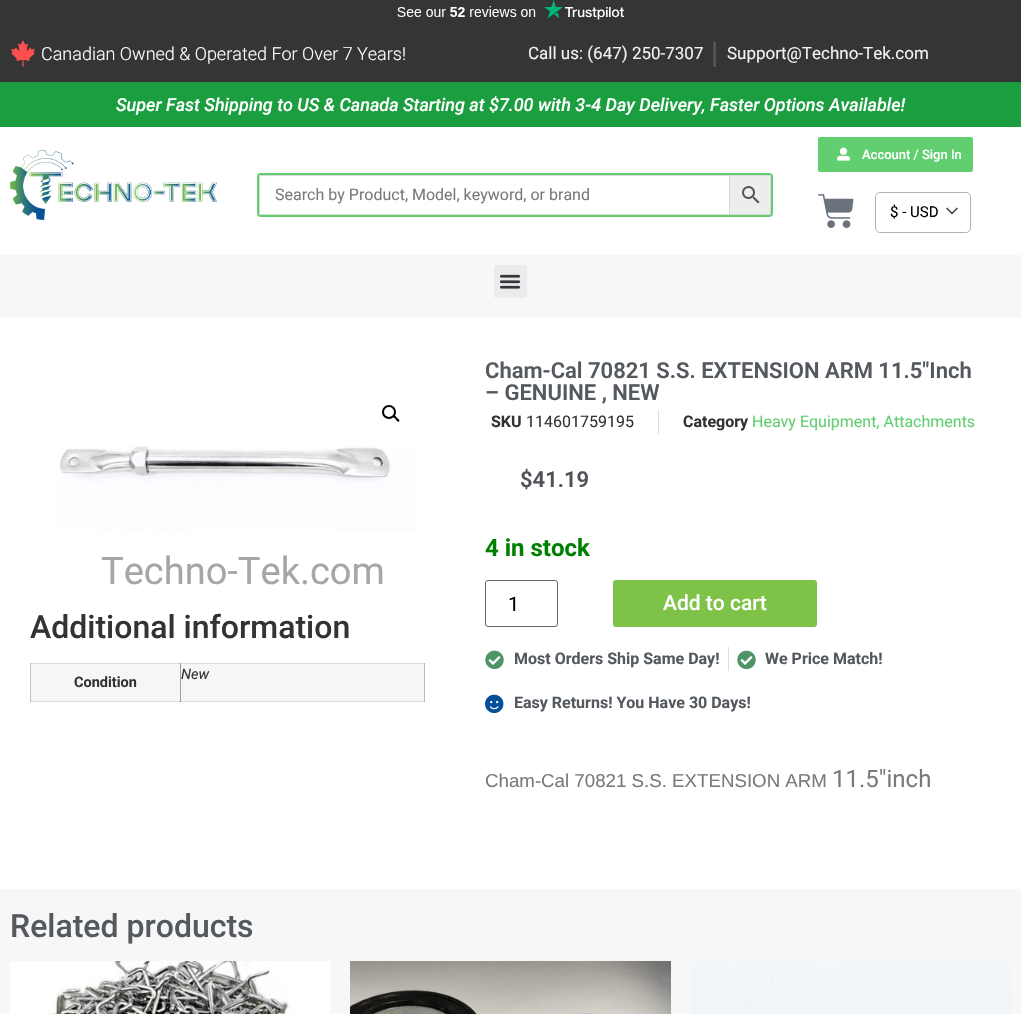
void draw(SkCanvas* canvas) {
	SkPaint paint;
	paint.setAntiAlias(true);
	auto svgPath = [&](const char* data, bool evenOdd = false) {
		SkPath result = *SkParsePath::FromSVGString(data);
		if (evenOdd) result.setFillType(SkPathFillType::kEvenOdd);
		return result;
	};
	canvas->clear(0xffffffff);
	paint.setColor(0xffc0c0c0);
	canvas->drawRect(SkRect::MakeXYWH(30, 663, 1, 39), paint);
	paint.setColor(0xffb3b3b3);
	canvas->drawRect(SkRect::MakeXYWH(30, 701, 1, 1), paint);
	canvas->drawRect(SkRect::MakeXYWH(30, 663, 1, 1), paint);
	paint.setColor(0xff353535);
	canvas->drawRect(SkRect::MakeXYWH(0, 0, 1021, 82), paint);
	canvas->drawImageRect(SkImages::DeferredFromEncodedData(SkData::MakeFromFileName("img1.png")), SkRect::MakeXYWH(397, 0, 227, 20), SkSamplingOptions());
	canvas->drawImageRect(SkImages::DeferredFromEncodedData(SkData::MakeFromFileName("img2.png")), SkRect::MakeXYWH(11, 40, 24, 27), SkSamplingOptions());
	SkFont f1(fontMgr->matchFamilyStyle("Roboto", SkFontStyle(300, SkFontStyle::kNormal_Width, SkFontStyle::kUpright_Slant)), 18);
	f1.setSubpixel(true);
	paint.setColor(0xffffffff);
	canvas->drawString("Canadian Owned & Operated For Over 7 Years!", 41, 60, f1, paint);
	SkFont f2(fontMgr->matchFamilyStyle("Roboto", SkFontStyle::Normal()), 17);
	f2.setSubpixel(true);
	paint.setColor(0xfff1f1f1);
	canvas->drawString("Call us: (647) 250-7307", 528, 59, f2, paint);
	SkFont f3(fontMgr->matchFamilyStyle("Roboto", SkFontStyle::Normal()), 30);
	f3.setSubpixel(true);
	paint.setColor(0xff54595f);
	canvas->drawString("|", 711, 63, f3, paint);
	paint.setColor(0xfff1f1f1);
	canvas->drawString("Support@Techno-Tek.com", 727, 59, f2, paint);
	paint.setColor(0xff1a9e3f);
	canvas->drawRect(SkRect::MakeXYWH(0, 82, 1021, 45), paint);
	SkFont f4(fontMgr->matchFamilyStyle("Roboto", SkFontStyle(500, SkFontStyle::kNormal_Width, SkFontStyle::kItalic_Slant)), 18);
	f4.setSubpixel(true);
	paint.setColor(0xffffffff);
	canvas->drawString("Super Fast Shipping to US & Canada Starting at $7.00 with 3-4 Day Delivery, Faster Options Available!", 116, 111, f4, paint);
	canvas->drawImageRect(SkImages::DeferredFromEncodedData(SkData::MakeFromFileName("img3.png")), SkRect::MakeXYWH(10, 150, 207, 70), SkSamplingOptions());
	paint.setStroke(true);
	paint.setStrokeWidth(2);
	paint.setColor(0xff61ce70);
	canvas->drawRoundRect(SkRect::MakeXYWH(258, 174, 514, 42), 3, 3, paint);
	paint.setStroke(false);
	paint.setColor(0xffededed);
	canvas->drawRect(SkRect::MakeXYWH(729.5, 175.5, 41, 39), paint);
	paint.setStroke(true);
	paint.setStrokeWidth(1);
	paint.setColor(0xffd8d8d8);
	canvas->drawRect(SkRect::MakeXYWH(729.5, 175.5, 41, 39), paint);
	canvas->drawRect(SkRect::MakeXYWH(259.5, 175.5, 470, 39), paint);
	SkFont f5(fontMgr->matchFamilyStyle("Roboto", SkFontStyle::Normal()), 16);
	f5.setSubpixel(true);
	paint.setStroke(false);
	paint.setColor(0xff7a7a7a);
	canvas->drawString("Search by Product, Model, keyword, or brand", 275, 200, f5, paint);
	canvas->drawImageRect(SkImages::DeferredFromEncodedData(SkData::MakeFromFileName("img4.png")), SkRect::MakeXYWH(742, 186, 18, 18), SkSamplingOptions());
	paint.setColor(0xff61ce70);
	canvas->drawRoundRect(SkRect::MakeXYWH(818, 137, 155, 35), 2, 2, paint);
	canvas->drawImageRect(SkImages::DeferredFromEncodedData(SkData::MakeFromFileName("img5.png")), SkRect::MakeXYWH(837, 147, 13, 14), SkSamplingOptions());
	SkFont f6(fontMgr->matchFamilyStyle("Roboto", SkFontStyle(500, SkFontStyle::kNormal_Width, SkFontStyle::kUpright_Slant)), 13);
	f6.setSubpixel(true);
	paint.setColor(0xffffffff);
	canvas->drawString("Account / Sign In", 862, 159, f6, paint);
	canvas->drawImageRect(SkImages::DeferredFromEncodedData(SkData::MakeFromFileName("img6.png")), SkRect::MakeXYWH(818, 194, 36, 34), SkSamplingOptions());
	paint.setStroke(true);
	paint.setColor(0xffb2b2b2);
	canvas->drawRoundRect(SkRect::MakeXYWH(875.5, 192.5, 95, 40), 4.5, 4.5, paint);
	SkFont f7(fontMgr->matchFamilyStyle("Roboto", SkFontStyle::Normal()), 15);
	f7.setSubpixel(true);
	paint.setStroke(false);
	paint.setColor(0xff000000);
	canvas->drawString("$ - USD", 890, 217, f7, paint);
	canvas->drawImageRect(SkImages::DeferredFromEncodedData(SkData::MakeFromFileName("img7.png")), SkRect::MakeXYWH(946, 207, 12, 8), SkSamplingOptions());
	paint.setColor(0xfff7f7f7);
	canvas->drawRect(SkRect::MakeXYWH(0, 255, 1021, 63), paint);
	paint.setColor(0xffebebeb);
	canvas->drawRoundRect(SkRect::MakeXYWH(494, 265, 33, 33), 3, 3, paint);
	canvas->drawImageRect(SkImages::DeferredFromEncodedData(SkData::MakeFromFileName("img8.png")), SkRect::MakeXYWH(499, 274, 22, 15), SkSamplingOptions());
	paint.setStroke(true);
	paint.setStrokeWidth(2);
	paint.setColor(0xff000000);
	canvas->drawCircle(389, 412, 6, paint);
	paint.setStroke(false);
	canvas->drawPath(svgPath("M393.5 415.5C394.5 414.5 396.5 417 397 418C397.5 418.5 400.5 420 399 421.5C398 422.5 396 420 395.5 419C395 418.5 392.5 417 393.5 415.5Z"), paint);
	canvas->drawImageRect(SkImages::DeferredFromEncodedData(SkData::MakeFromFileName("img9.png")), SkRect::MakeXYWH(59, 446, 358, 85), SkSamplingOptions());
	SkFont f8(fontMgr->matchFamilyStyle("Roboto", SkFontStyle::Normal()), 38);
	f8.setSubpixel(true);
	paint.setColor(0xffa6a6a6);
	canvas->drawString("Techno-Tek.com", 101, 584, f8, paint);
	SkFont f9(fontMgr->matchFamilyStyle("Roboto", SkFontStyle(500, SkFontStyle::kNormal_Width, SkFontStyle::kUpright_Slant)), 32);
	f9.setSubpixel(true);
	paint.setColor(0xff333333);
	canvas->drawString("Additional information", 30, 638, f9, paint);
	paint.setColor(0xfff6f6f6);
	canvas->drawRect(SkRect::MakeXYWH(181, 664, 243, 37), paint);
	paint.setColor(0xffdddddd);
	canvas->drawRect(SkRect::MakeXYWH(31, 701, 394, 1), paint);
	paint.setColor(0xffbbbbbb);
	canvas->drawRect(SkRect::MakeXYWH(424, 663, 1, 39), paint);
	paint.setColor(0xffa8a8a8);
	canvas->drawRect(SkRect::MakeXYWH(424, 701, 1, 1), paint);
	paint.setColor(0xffdddddd);
	canvas->drawRect(SkRect::MakeXYWH(181, 663, 244, 1), paint);
	paint.setColor(0xffafafaf);
	canvas->drawRect(SkRect::MakeXYWH(424, 663, 1, 1), paint);
	SkFont f10(fontMgr->matchFamilyStyle("Roboto", SkFontStyle::Italic()), 14.5);
	f10.setSubpixel(true);
	paint.setColor(0xff333333);
	canvas->drawString("New", 181, 679, f10, paint);
	paint.setColor(0xfff6f6f6);
	canvas->drawRect(SkRect::MakeXYWH(31, 664, 149, 37), paint);
	paint.setColor(0xff9e9e9e);
	canvas->drawRect(SkRect::MakeXYWH(180, 663, 1, 39), paint);
	paint.setColor(0xff898989);
	canvas->drawRect(SkRect::MakeXYWH(180, 701, 1, 1), paint);
	paint.setColor(0xffdddddd);
	canvas->drawRect(SkRect::MakeXYWH(31, 663, 150, 1), paint);
	paint.setColor(0xff989898);
	canvas->drawRect(SkRect::MakeXYWH(180, 663, 1, 1), paint);
	SkFont f11(fontMgr->matchFamilyStyle("Roboto", SkFontStyle::Bold()), 14.5);
	f11.setSubpixel(true);
	paint.setColor(0xff333333);
	canvas->drawString("Condition", 74, 687, f11, paint);
	SkFont f12(fontMgr->matchFamilyStyle("Roboto", SkFontStyle(600, SkFontStyle::kNormal_Width, SkFontStyle::kUpright_Slant)), 22);
	f12.setSubpixel(true);
	paint.setColor(0xff54595f);
	canvas->drawString("Cham-Cal 70821 S.S. EXTENSION ARM 11.5\"Inch", 485, 378, f12, paint);
	canvas->drawString("– GENUINE , NEW", 485, 400, f12, paint);
	SkFont f13(fontMgr->matchFamilyStyle("Roboto", SkFontStyle::Bold()), 16);
	f13.setSubpixel(true);
	paint.setColor(0xff333333);
	canvas->drawString("SKU", 491, 427, f13, paint);
	canvas->drawString("114601759195", 526, 427, f5, paint);
	paint.setColor(0xffdddddd);
	canvas->drawRect(SkRect::MakeXYWH(658, 410, 1, 24), paint);
	paint.setColor(0xff333333);
	canvas->drawString("Category", 683, 427, f13, paint);
	paint.setColor(0xff61ce70);
	canvas->drawString("Heavy Equipment, Attachments", 752, 427, f5, paint);
	paint.setColor(0xff505458);
	canvas->drawString("$41.19", 520, 487, f12, paint);
	SkFont f14(fontMgr->matchFamilyStyle("Roboto", SkFontStyle::Bold()), 24);
	f14.setSubpixel(true);
	paint.setColor(0xff008000);
	canvas->drawString("4 in stock", 485, 556, f14, paint);
	paint.setStroke(true);
	paint.setStrokeWidth(1);
	paint.setColor(0xff666666);
	canvas->drawRoundRect(SkRect::MakeXYWH(485.5, 580.5, 72, 46), 2.5, 2.5, paint);
	SkFont f15(fontMgr->matchFamilyStyle("Roboto", SkFontStyle::Normal()), 20);
	f15.setSubpixel(true);
	paint.setStroke(false);
	paint.setColor(0xff000000);
	canvas->drawString("1", 508, 611, f15, paint);
	paint.setColor(0xff7ec247);
	canvas->drawRoundRect(SkRect::MakeXYWH(613, 580, 204, 47), 3, 3, paint);
	SkFont f16(fontMgr->matchFamilyStyle("Roboto", SkFontStyle(500, SkFontStyle::kNormal_Width, SkFontStyle::kUpright_Slant)), 21);
	f16.setSubpixel(true);
	paint.setColor(0xffffffff);
	canvas->drawString("Add to cart", 663, 610, f16, paint);
	canvas->drawImageRect(SkImages::DeferredFromEncodedData(SkData::MakeFromFileName("img10.png")), SkRect::MakeXYWH(485, 650, 19, 20), SkSamplingOptions());
	paint.setColor(0xff54595f);
	canvas->drawString("Most Orders Ship Same Day!", 514, 664, f13, paint);
	paint.setColor(0xffdddddd);
	canvas->drawRect(SkRect::MakeXYWH(728, 647, 1, 24), paint);
	canvas->drawImageRect(SkImages::DeferredFromEncodedData(SkData::MakeFromFileName("img10.png")), SkRect::MakeXYWH(737, 650, 19, 20), SkSamplingOptions());
	paint.setColor(0xff54595f);
	canvas->drawString("We Price Match!", 765, 664, f13, paint);
	canvas->drawImageRect(SkImages::DeferredFromEncodedData(SkData::MakeFromFileName("img11.png")), SkRect::MakeXYWH(485, 694, 19, 20), SkSamplingOptions());
	canvas->drawString("Easy Returns! You Have 30 Days!", 514, 708, f13, paint);
	SkFont f17(fontMgr->matchFamilyStyle("Liberation Sans", SkFontStyle::Normal()), 18.7);
	f17.setSubpixel(true);
	paint.setColor(0xff7a7a7a);
	canvas->drawString("Cham-Cal 70821 S.S. EXTENSION ARM", 485, 787, f17, paint);
	SkFont f18(fontMgr->matchFamilyStyle("Roboto", SkFontStyle::Normal()), 24);
	f18.setSubpixel(true);
	canvas->drawString("11.5″inch", 832, 787, f18, paint);
	paint.setColor(0xfff7f7f7);
	canvas->drawRect(SkRect::MakeXYWH(0, 889, 1021, 125), paint);
	paint.setColor(0xff54595f);
	canvas->drawString("Related products", 10, 937, f9, paint);
	canvas->drawImageRect(SkImages::DeferredFromEncodedData(SkData::MakeFromFileName("img12.png")), SkRect::MakeXYWH(10, 961, 320, 53), SkSamplingOptions());
	canvas->drawImageRect(SkImages::DeferredFromEncodedData(SkData::MakeFromFileName("img13.png")), SkRect::MakeXYWH(350, 961, 321, 53), SkSamplingOptions());
	canvas->drawImageRect(SkImages::DeferredFromEncodedData(SkData::MakeFromFileName("img14.png")), SkRect::MakeXYWH(691, 961, 320, 53), SkSamplingOptions());
}
